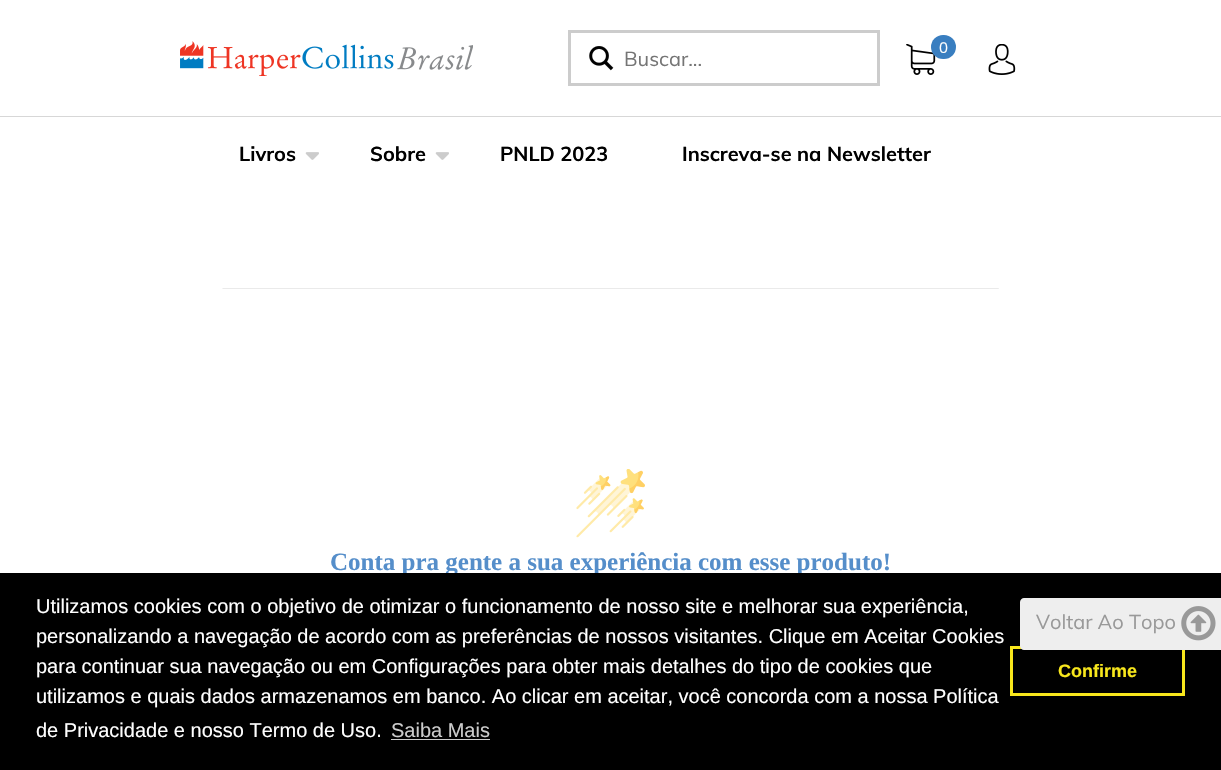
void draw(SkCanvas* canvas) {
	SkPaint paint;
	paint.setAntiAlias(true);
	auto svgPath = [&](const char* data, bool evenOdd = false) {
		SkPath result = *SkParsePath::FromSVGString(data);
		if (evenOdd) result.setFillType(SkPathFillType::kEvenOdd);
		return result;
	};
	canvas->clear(0xffffffff);
	paint.setColor(0xffd7d7d7);
	canvas->drawRect(SkRect::MakeXYWH(0, 116, 1221, 1), paint);
	canvas->drawImageRect(SkImages::DeferredFromEncodedData(SkData::MakeFromFileName("img1.png")), SkRect::MakeXYWH(180, 41, 293, 35), SkSamplingOptions());
	canvas->drawImageRect(SkImages::DeferredFromEncodedData(SkData::MakeFromFileName("img2.png")), SkRect::MakeXYWH(906, 44, 30, 31), SkSamplingOptions());
	paint.setColor(0xff397ec0);
	canvas->drawRoundRect(SkRect::MakeXYWH(931, 35, 25, 24), 12, 12, paint);
	SkFont f1(fontMgr->matchFamilyStyle("Muli", SkFontStyle::Normal()), 15);
	f1.setSubpixel(true);
	paint.setColor(0xffffffff);
	canvas->drawString("0", 939, 53, f1, paint);
	canvas->drawImageRect(SkImages::DeferredFromEncodedData(SkData::MakeFromFileName("img3.png")), SkRect::MakeXYWH(988, 44, 28, 31), SkSamplingOptions());
	paint.setStroke(true);
	paint.setStrokeWidth(3);
	paint.setColor(0xffcccccc);
	canvas->drawRect(SkRect::MakeXYWH(569.5, 31.5, 309, 53), paint);
	canvas->drawImageRect(SkImages::DeferredFromEncodedData(SkData::MakeFromFileName("img4.png")), SkRect::MakeXYWH(589, 46, 25, 25), SkSamplingOptions());
	SkFont f2(fontMgr->matchFamilyStyle("Muli", SkFontStyle::Normal()), 20);
	f2.setSubpixel(true);
	paint.setStroke(false);
	paint.setColor(0xff757575);
	canvas->drawString("Buscar...", 624, 66, f2, paint);
	SkFont f3(fontMgr->matchFamilyStyle("Muli", SkFontStyle::Bold()), 20);
	f3.setSubpixel(true);
	paint.setColor(0xff000000);
	canvas->drawString("Livros", 239, 161, f3, paint);
	canvas->drawImageRect(SkImages::DeferredFromEncodedData(SkData::MakeFromFileName("img5.png")), SkRect::MakeXYWH(305, 152, 14, 8), SkSamplingOptions());
	canvas->drawString("Sobre", 370, 161, f3, paint);
	canvas->drawImageRect(SkImages::DeferredFromEncodedData(SkData::MakeFromFileName("img5.png")), SkRect::MakeXYWH(435, 152, 14, 8), SkSamplingOptions());
	canvas->drawString("PNLD 2023", 500, 161, f3, paint);
	canvas->drawString("Inscreva-se na Newsletter", 682, 161, f3, paint);
	canvas->drawImageRect(SkImages::DeferredFromEncodedData(SkData::MakeFromFileName("img6.png")), SkRect::MakeXYWH(222, 288, 777, 1), SkSamplingOptions());
	canvas->drawImageRect(SkImages::DeferredFromEncodedData(SkData::MakeFromFileName("img7.png")), SkRect::MakeXYWH(576, 469, 69, 69), SkSamplingOptions());
	SkFont f4(fontMgr->matchFamilyStyle("Liberation Serif", SkFontStyle::Bold()), 25);
	f4.setSubpixel(true);
	paint.setColor(0xff558eca);
	canvas->drawString("Conta pra gente a sua experiência com esse produto!", 330, 570, f4, paint);
	paint.setColor(0xff000000);
	canvas->drawRect(SkRect::MakeXYWH(0, 573, 1221, 197), paint);
	SkFont f5(fontMgr->matchFamilyStyle("Liberation Sans", SkFontStyle::Normal()), 20);
	f5.setSubpixel(true);
	paint.setColor(0xffffffff);
	canvas->drawString("Utilizamos cookies com o objetivo de otimizar o funcionamento de nosso site e melhorar sua experiência,", 36, 613, f5, paint);
	canvas->drawString("personalizando a navegação de acordo com as preferências de nossos visitantes. Clique em Aceitar Cookies", 36, 643, f5, paint);
	canvas->drawString("para continuar sua navegação ou em Configurações para obter mais detalhes do tipo de cookies que", 36, 673, f5, paint);
	canvas->drawString("utilizamos e quais dados armazenamos em banco. Ao clicar em aceitar, você concorda com a nossa Política", 36, 703, f5, paint);
	canvas->drawString("de Privacidade e nosso Termo de Uso.", 36, 737, f5, paint);
	paint.setColor(0xffcccccc);
	canvas->drawString("Saiba Mais", 391, 737, f5, paint);
	canvas->drawRect(SkRect::MakeXYWH(391, 739, 99, 1), paint);
	paint.setStroke(true);
	paint.setColor(0xfff8e71c);
	canvas->drawRect(SkRect::MakeXYWH(1011.5, 647.5, 172, 47), paint);
	SkFont f6(fontMgr->matchFamilyStyle("Liberation Sans", SkFontStyle::Bold()), 18);
	f6.setSubpixel(true);
	paint.setStroke(false);
	canvas->drawString("Confirme", 1058, 677, f6, paint);
	paint.setColor(0xffeeeeee);
	canvas->drawPath(svgPath("M1024 598H1221V650H1024C1022 650 1020 648 1020 646V602C1020 600 1022 598 1024 598Z"), paint);
	paint.setColor(0xff999999);
	canvas->drawString("Voltar Ao Topo", 1036, 629, f2, paint);
	canvas->drawImageRect(SkImages::DeferredFromEncodedData(SkData::MakeFromFileName("img8.png")), SkRect::MakeXYWH(1181, 606, 35, 35), SkSamplingOptions());
}
